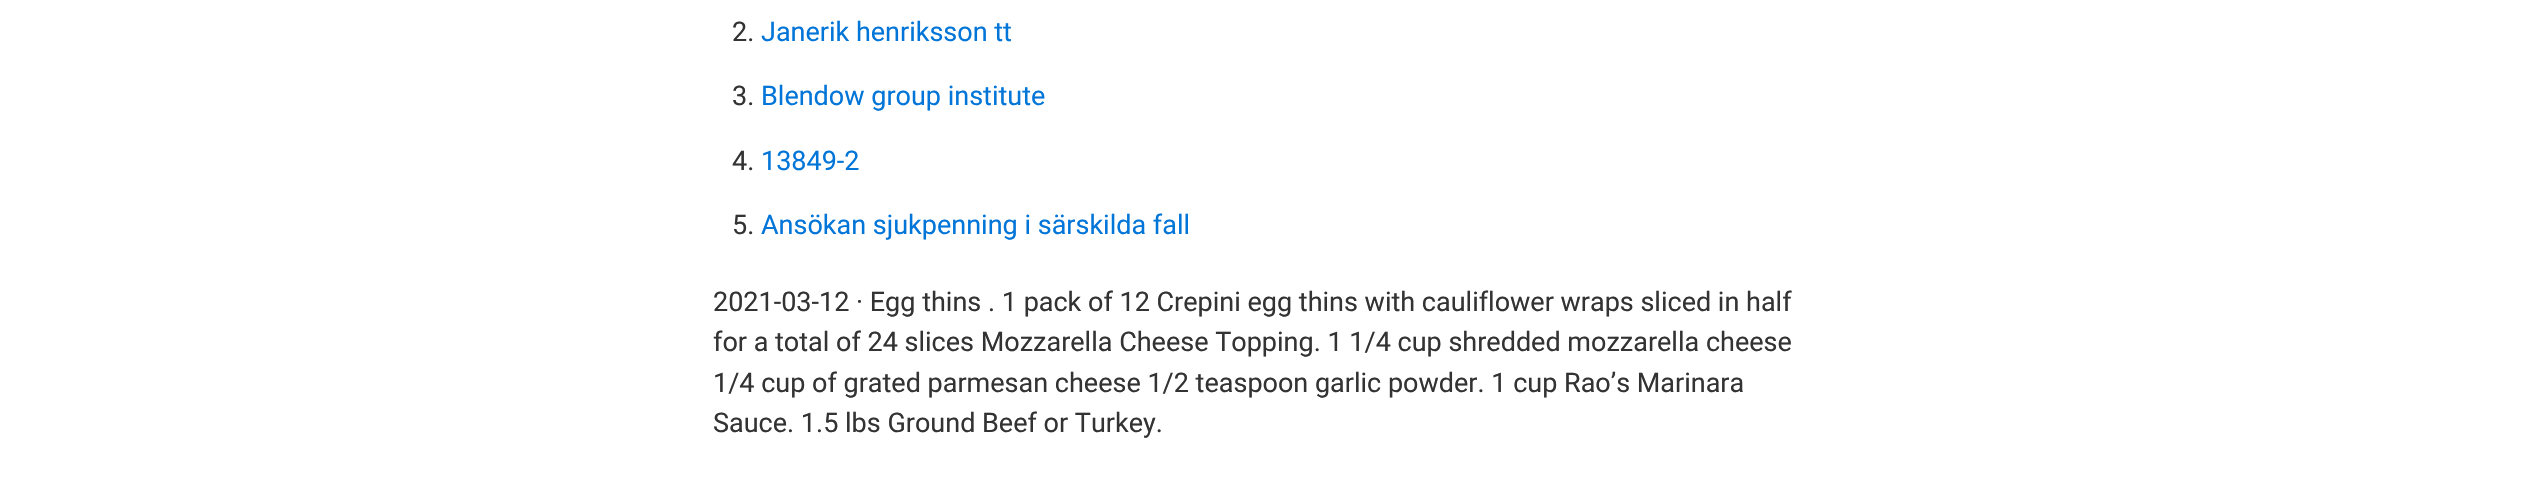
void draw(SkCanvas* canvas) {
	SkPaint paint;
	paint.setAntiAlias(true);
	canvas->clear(0xffffffff);
	SkFont f1(fontMgr->matchFamilyStyle("Roboto", SkFontStyle::Normal()), 27);
	f1.setSubpixel(true);
	paint.setColor(0xff333333);
	canvas->drawString("2.", 732, 41, f1, paint);
	paint.setColor(0xff0275d8);
	canvas->drawString("Janerik henriksson tt", 761, 41, f1, paint);
	paint.setColor(0xff333333);
	canvas->drawString("3.", 732, 105, f1, paint);
	paint.setColor(0xff0275d8);
	canvas->drawString("Blendow group institute", 761, 105, f1, paint);
	paint.setColor(0xff333333);
	canvas->drawString("4.", 732, 170, f1, paint);
	paint.setColor(0xff0275d8);
	canvas->drawString("13849-2", 761, 170, f1, paint);
	paint.setColor(0xff333333);
	canvas->drawString("5.", 732, 234, f1, paint);
	paint.setColor(0xff0275d8);
	canvas->drawString("Ansökan sjukpenning i särskilda fall", 761, 234, f1, paint);
	paint.setColor(0xff333333);
	canvas->drawString("2021-03-12 · Egg thins . 1 pack of 12 Crepini egg thins with cauliflower wraps sliced in half", 713, 311, f1, paint);
	canvas->drawString("for a total of 24 slices Mozzarella Cheese Topping. 1 1/4 cup shredded mozzarella cheese", 713, 351, f1, paint);
	canvas->drawString("1/4 cup of grated parmesan cheese 1/2 teaspoon garlic powder. 1 cup Rao’s Marinara", 713, 392, f1, paint);
	canvas->drawString("Sauce. 1.5 lbs Ground Beef or Turkey.", 713, 432, f1, paint);
}
